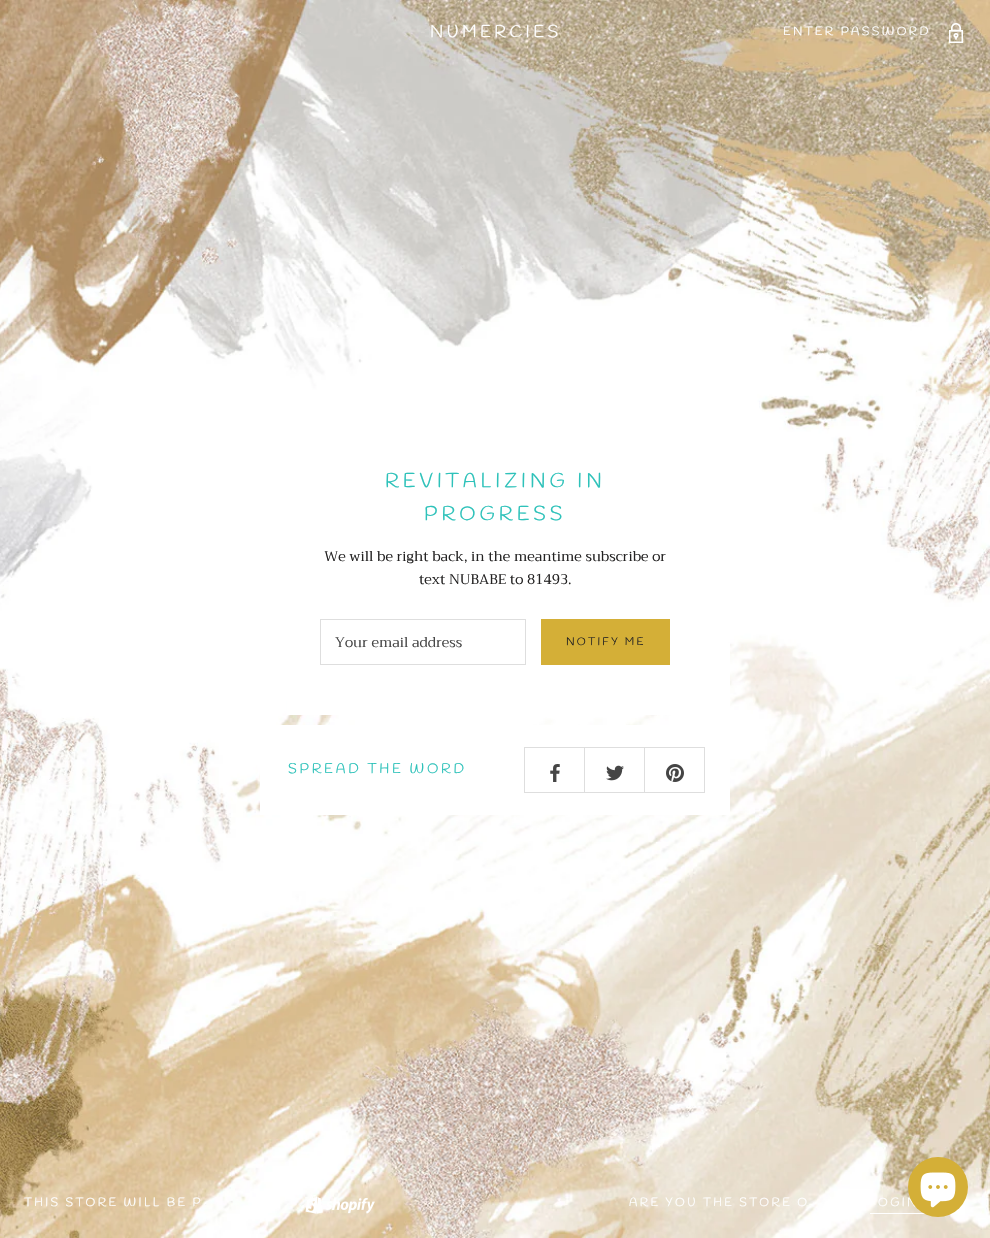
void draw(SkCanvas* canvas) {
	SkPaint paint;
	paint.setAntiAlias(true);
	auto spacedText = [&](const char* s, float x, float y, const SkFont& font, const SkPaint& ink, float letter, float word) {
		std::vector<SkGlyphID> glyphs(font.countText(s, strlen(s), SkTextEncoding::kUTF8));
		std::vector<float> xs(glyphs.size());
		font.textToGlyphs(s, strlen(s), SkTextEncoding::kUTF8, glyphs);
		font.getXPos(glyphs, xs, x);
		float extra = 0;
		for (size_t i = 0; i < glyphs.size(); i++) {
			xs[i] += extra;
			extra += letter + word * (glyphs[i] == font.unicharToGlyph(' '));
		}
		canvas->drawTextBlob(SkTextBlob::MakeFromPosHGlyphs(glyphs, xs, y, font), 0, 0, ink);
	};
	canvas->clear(0xffffffff);
	canvas->drawImageRect(SkImages::DeferredFromEncodedData(SkData::MakeFromFileName("img1.png")), SkRect::MakeXYWH(0, 0, 990, 1238), SkSamplingOptions());
	SkFont f1(fontMgr->matchFamilyStyle("Handlee", SkFontStyle::Normal()), 17);
	f1.setSubpixel(true);
	paint.setColor(0xffffffff);
	spacedText("NUMERCIES", 430, 37, f1, paint, 3.5, 0);
	SkFont f2(fontMgr->matchFamilyStyle("Handlee", SkFontStyle::Normal()), 12);
	f2.setSubpixel(true);
	spacedText("ENTER PASSWORD", 783, 35, f2, paint, 2.4, 0);
	canvas->drawImageRect(SkImages::DeferredFromEncodedData(SkData::MakeFromFileName("img2.png")), SkRect::MakeXYWH(949, 23, 14, 20), SkSamplingOptions());
	canvas->drawRect(SkRect::MakeXYWH(287, 643, 443, 72), paint);
	SkFont f3(fontMgr->matchFamilyStyle("Handlee", SkFontStyle::Normal()), 20);
	f3.setSubpixel(true);
	paint.setColor(0xff2ec2ba);
	spacedText("REVITALIZING IN", 385, 487, f3, paint, 4, 0);
	spacedText("PROGRESS", 424, 520, f3, paint, 4, 0);
	SkFont f4(fontMgr->matchFamilyStyle("Trirong", SkFontStyle::Normal()), 14);
	f4.setSubpixel(true);
	paint.setColor(0xff232222);
	canvas->drawString("We will be right back, in the meantime subscribe or", 324, 561, f4, paint);
	canvas->drawString("text NUBABE to 81493.", 419, 584, f4, paint);
	paint.setStroke(true);
	paint.setStrokeWidth(1);
	paint.setColor(0xffdedede);
	canvas->drawRect(SkRect::MakeXYWH(320.5, 619.5, 205, 45), paint);
	paint.setStroke(false);
	paint.setColor(0xff454545);
	canvas->drawString("Your email address", 335, 647, f4, paint);
	paint.setStroke(true);
	paint.setColor(0xffd4af37);
	canvas->drawRect(SkRect::MakeXYWH(541.5, 619.5, 128, 45), paint);
	paint.setStroke(false);
	canvas->drawRect(SkRect::MakeXYWH(542, 620, 127, 44), paint);
	SkFont f5(fontMgr->matchFamilyStyle("Handlee", SkFontStyle::Normal()), 11);
	f5.setSubpixel(true);
	paint.setColor(0xff232222);
	spacedText("NOTIFY ME", 566, 645, f5, paint, 2.25, 0);
	paint.setColor(0xffffffff);
	canvas->drawRect(SkRect::MakeXYWH(260, 725, 470, 90), paint);
	SkFont f6(fontMgr->matchFamilyStyle("Handlee", SkFontStyle::Normal()), 14);
	f6.setSubpixel(true);
	paint.setColor(0xff2ec2ba);
	spacedText("SPREAD THE WORD", 288, 773, f6, paint, 2.75, 0);
	paint.setColor(0xffdedede);
	canvas->drawRect(SkRect::MakeXYWH(644, 747, 61, 1), paint);
	canvas->drawRect(SkRect::MakeXYWH(704, 747, 1, 46), paint);
	canvas->drawRect(SkRect::MakeXYWH(644, 792, 61, 1), paint);
	canvas->drawRect(SkRect::MakeXYWH(644, 747, 1, 46), paint);
	canvas->drawRect(SkRect::MakeXYWH(584, 747, 61, 1), paint);
	canvas->drawRect(SkRect::MakeXYWH(584, 792, 61, 1), paint);
	canvas->drawRect(SkRect::MakeXYWH(584, 747, 1, 46), paint);
	canvas->drawRect(SkRect::MakeXYWH(524, 747, 61, 1), paint);
	canvas->drawRect(SkRect::MakeXYWH(524, 792, 61, 1), paint);
	canvas->drawRect(SkRect::MakeXYWH(524, 747, 1, 46), paint);
	canvas->drawImageRect(SkImages::DeferredFromEncodedData(SkData::MakeFromFileName("img3.png")), SkRect::MakeXYWH(550, 764, 10, 18), SkSamplingOptions());
	canvas->drawImageRect(SkImages::DeferredFromEncodedData(SkData::MakeFromFileName("img4.png")), SkRect::MakeXYWH(606, 765, 18, 16), SkSamplingOptions());
	canvas->drawImageRect(SkImages::DeferredFromEncodedData(SkData::MakeFromFileName("img5.png")), SkRect::MakeXYWH(666, 764, 18, 18), SkSamplingOptions());
	paint.setColor(0xffffffff);
	spacedText("THIS STORE WILL BE P", 24, 1206, f2, paint, 2.4, 0);
	canvas->drawImageRect(SkImages::DeferredFromEncodedData(SkData::MakeFromFileName("img6.png")), SkRect::MakeXYWH(305, 1195, 70, 19), SkSamplingOptions());
	spacedText("ARE YOU THE STORE O", 629, 1206, f2, paint, 2.4, 0);
	spacedText("OGIN", 878, 1206, f2, paint, 2.4, 0);
	canvas->drawRect(SkRect::MakeXYWH(870, 1213, 87, 1), paint);
	paint.setColor(0xffd4af37);
	canvas->drawCircle(938, 1187, 30, paint);
	canvas->drawImageRect(SkImages::DeferredFromEncodedData(SkData::MakeFromFileName("img7.png")), SkRect::MakeXYWH(920, 1172, 36, 36), SkSamplingOptions());
}
